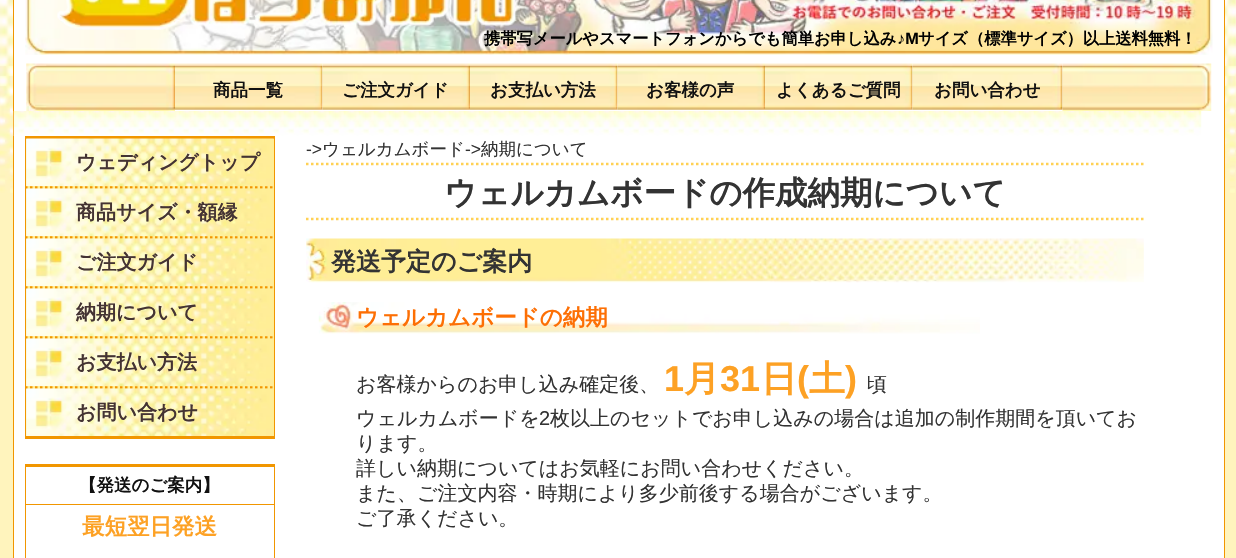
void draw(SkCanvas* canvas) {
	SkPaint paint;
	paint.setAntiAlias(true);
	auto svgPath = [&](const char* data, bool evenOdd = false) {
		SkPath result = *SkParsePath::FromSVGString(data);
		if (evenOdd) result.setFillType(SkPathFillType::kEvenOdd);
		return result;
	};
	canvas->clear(0xfffff4bd);
	canvas->drawImageRect(SkImages::DeferredFromEncodedData(SkData::MakeFromFileName("img1.png")), SkRect::MakeXYWH(0, 0, 1236, 193), SkSamplingOptions());
	paint.setColor(0xffffffff);
	canvas->drawRect(SkRect::MakeXYWH(14, 0, 1210, 558), paint);
	paint.setColor(0xfff19600);
	canvas->drawRect(SkRect::MakeXYWH(1224, 0, 1, 558), paint);
	canvas->drawRect(SkRect::MakeXYWH(13, 0, 1, 558), paint);
	canvas->drawImageRect(SkImages::DeferredFromEncodedData(SkData::MakeFromFileName("img2.png")), SkRect::MakeXYWH(25, 0, 1188, 55), SkSamplingOptions());
	canvas->drawImageRect(SkImages::DeferredFromEncodedData(SkData::MakeFromFileName("img3.png")), SkRect::MakeXYWH(57, 0, 460, 30), SkSamplingOptions());
	SkFont f1(fontMgr->matchFamilyStyle("WenQuanYi Zen Hei", SkFontStyle::Bold()), 16.25);
	f1.setSubpixel(true);
	paint.setColor(0xff000000);
	canvas->drawString("携帯写メールやスマートフォンからでも簡単お申し込み", 484, 44, f1, paint);
	SkFont f2(fontMgr->matchFamilyStyle("Liberation Sans", SkFontStyle::Bold()), 16.25);
	f2.setSubpixel(true);
	canvas->drawString("♪M", 897, 44, f2, paint);
	canvas->drawString("サイズ（標準サイズ）以上送料無料！", 918, 44, f1, paint);
	canvas->drawImageRect(SkImages::DeferredFromEncodedData(SkData::MakeFromFileName("img4.png")), SkRect::MakeXYWH(26, 63, 149, 48), SkSamplingOptions());
	canvas->drawImageRect(SkImages::DeferredFromEncodedData(SkData::MakeFromFileName("img5.png")), SkRect::MakeXYWH(175, 63, 148, 47), SkSamplingOptions());
	SkFont f3(fontMgr->matchFamilyStyle("WenQuanYi Zen Hei", SkFontStyle::Bold()), 17.5);
	f3.setSubpixel(true);
	paint.setColor(0xff111111);
	canvas->drawString("商品一覧", 213, 96, f3, paint);
	canvas->drawImageRect(SkImages::DeferredFromEncodedData(SkData::MakeFromFileName("img6.png")), SkRect::MakeXYWH(322, 63, 148, 47), SkSamplingOptions());
	canvas->drawString("ご注文ガイド", 342, 96, f3, paint);
	canvas->drawImageRect(SkImages::DeferredFromEncodedData(SkData::MakeFromFileName("img7.png")), SkRect::MakeXYWH(470, 63, 148, 47), SkSamplingOptions());
	canvas->drawString("お支払い方法", 490, 96, f3, paint);
	canvas->drawImageRect(SkImages::DeferredFromEncodedData(SkData::MakeFromFileName("img8.png")), SkRect::MakeXYWH(617, 63, 148, 47), SkSamplingOptions());
	canvas->drawString("お客様の声", 646, 96, f3, paint);
	canvas->drawImageRect(SkImages::DeferredFromEncodedData(SkData::MakeFromFileName("img5.png")), SkRect::MakeXYWH(765, 63, 148, 47), SkSamplingOptions());
	canvas->drawString("よくあるご質問", 776, 96, f3, paint);
	canvas->drawImageRect(SkImages::DeferredFromEncodedData(SkData::MakeFromFileName("img9.png")), SkRect::MakeXYWH(912, 63, 151, 47), SkSamplingOptions());
	canvas->drawString("お問い合わせ", 934, 96, f3, paint);
	canvas->drawImageRect(SkImages::DeferredFromEncodedData(SkData::MakeFromFileName("img10.png")), SkRect::MakeXYWH(1062, 63, 150, 48), SkSamplingOptions());
	canvas->drawImageRect(SkImages::DeferredFromEncodedData(SkData::MakeFromFileName("img11.png")), SkRect::MakeXYWH(13, 111, 1189, 25), SkSamplingOptions());
	paint.setColor(0xffffed95);
	canvas->drawRect(SkRect::MakeXYWH(26, 139, 248, 297), paint);
	paint.setColor(0xfff19600);
	canvas->drawRect(SkRect::MakeXYWH(25, 136, 250, 3), paint);
	canvas->drawRect(SkRect::MakeXYWH(274, 136, 1, 303), paint);
	paint.setStroke(true);
	paint.setStrokeWidth(2.5);
	paint.setPathEffect(SkDashPathEffect::Make({{2.5f, 2.5f}}, 0));
	canvas->drawPath(svgPath("M25 187.5H275"), paint);
	paint.setPathEffect(nullptr);
	paint.setStroke(false);
	canvas->drawRect(SkRect::MakeXYWH(25, 136, 1, 53), paint);
	canvas->drawImageRect(SkImages::DeferredFromEncodedData(SkData::MakeFromFileName("img12.png")), SkRect::MakeXYWH(26, 138, 248, 48), SkSamplingOptions());
	SkFont f4(fontMgr->matchFamilyStyle("WenQuanYi Zen Hei", SkFontStyle::Bold()), 20);
	f4.setSubpixel(true);
	paint.setColor(0xff443333);
	canvas->drawString("ウェディングトップ", 76, 169, f4, paint);
	paint.setStroke(true);
	paint.setColor(0xfff19600);
	paint.setPathEffect(SkDashPathEffect::Make({{2.5f, 2.5f}}, 0));
	canvas->drawPath(svgPath("M25 237.5H275"), paint);
	paint.setPathEffect(nullptr);
	paint.setStroke(false);
	canvas->drawRect(SkRect::MakeXYWH(25, 189, 1, 50), paint);
	canvas->drawImageRect(SkImages::DeferredFromEncodedData(SkData::MakeFromFileName("img13.png")), SkRect::MakeXYWH(26, 188, 247, 48), SkSamplingOptions());
	paint.setColor(0xff443333);
	canvas->drawString("商品サイズ・額縁", 76, 219, f4, paint);
	paint.setStroke(true);
	paint.setColor(0xfff19600);
	paint.setPathEffect(SkDashPathEffect::Make({{2.5f, 2.5f}}, 0));
	canvas->drawPath(svgPath("M25 287.5H275"), paint);
	paint.setPathEffect(nullptr);
	paint.setStroke(false);
	canvas->drawRect(SkRect::MakeXYWH(25, 239, 1, 50), paint);
	canvas->drawImageRect(SkImages::DeferredFromEncodedData(SkData::MakeFromFileName("img13.png")), SkRect::MakeXYWH(26, 238, 247, 48), SkSamplingOptions());
	paint.setColor(0xff443333);
	canvas->drawString("ご注文ガイド", 76, 269, f4, paint);
	paint.setStroke(true);
	paint.setColor(0xfff19600);
	paint.setPathEffect(SkDashPathEffect::Make({{2.5f, 2.5f}}, 0));
	canvas->drawPath(svgPath("M25 337.5H275"), paint);
	paint.setPathEffect(nullptr);
	paint.setStroke(false);
	canvas->drawRect(SkRect::MakeXYWH(25, 289, 1, 50), paint);
	canvas->drawImageRect(SkImages::DeferredFromEncodedData(SkData::MakeFromFileName("img13.png")), SkRect::MakeXYWH(26, 288, 247, 48), SkSamplingOptions());
	paint.setColor(0xff443333);
	canvas->drawString("納期について", 76, 319, f4, paint);
	paint.setStroke(true);
	paint.setColor(0xfff19600);
	paint.setPathEffect(SkDashPathEffect::Make({{2.5f, 2.5f}}, 0));
	canvas->drawPath(svgPath("M25 387.5H275"), paint);
	paint.setPathEffect(nullptr);
	paint.setStroke(false);
	canvas->drawRect(SkRect::MakeXYWH(25, 339, 1, 50), paint);
	canvas->drawImageRect(SkImages::DeferredFromEncodedData(SkData::MakeFromFileName("img13.png")), SkRect::MakeXYWH(26, 338, 247, 48), SkSamplingOptions());
	paint.setColor(0xff443333);
	canvas->drawString("お支払い方法", 76, 369, f4, paint);
	paint.setColor(0xfff19600);
	canvas->drawRect(SkRect::MakeXYWH(25, 436, 250, 3), paint);
	canvas->drawRect(SkRect::MakeXYWH(25, 389, 1, 50), paint);
	canvas->drawImageRect(SkImages::DeferredFromEncodedData(SkData::MakeFromFileName("img14.png")), SkRect::MakeXYWH(26, 388, 247, 48), SkSamplingOptions());
	paint.setColor(0xff443333);
	canvas->drawString("お問い合わせ", 76, 419, f4, paint);
	paint.setColor(0xfff19600);
	canvas->drawRect(SkRect::MakeXYWH(25, 464, 250, 3), paint);
	canvas->drawRect(SkRect::MakeXYWH(274, 464, 1, 94), paint);
	canvas->drawRect(SkRect::MakeXYWH(25, 464, 1, 94), paint);
	canvas->drawRect(SkRect::MakeXYWH(26, 504, 248, 1), paint);
	paint.setColor(0xff111111);
	canvas->drawString("【発送のご案内】", 79, 491, f3, paint);
	SkFont f5(fontMgr->matchFamilyStyle("WenQuanYi Zen Hei", SkFontStyle::Bold()), 22.5);
	f5.setSubpixel(true);
	paint.setColor(0xfffda124);
	canvas->drawString("最短翌日発送", 82, 534, f5, paint);
	SkFont f6(fontMgr->matchFamilyStyle("Liberation Sans", SkFontStyle::Normal()), 17.5);
	f6.setSubpixel(true);
	paint.setColor(0xff333333);
	canvas->drawString("->", 306, 155, f6, paint);
	SkFont f7(fontMgr->matchFamilyStyle("WenQuanYi Zen Hei", SkFontStyle(500, SkFontStyle::kNormal_Width, SkFontStyle::kUpright_Slant)), 17.5);
	f7.setSubpixel(true);
	canvas->drawString("ウェルカムボード", 322, 155, f7, paint);
	canvas->drawString("->", 465, 155, f6, paint);
	canvas->drawString("納期について", 481, 155, f7, paint);
	paint.setStroke(true);
	paint.setColor(0xffffd154);
	paint.setPathEffect(SkDashPathEffect::Make({{2.5f, 2.5f}}, 0));
	canvas->drawPath(svgPath("M306 164H1144"), paint);
	paint.setPathEffect(nullptr);
	paint.setPathEffect(SkDashPathEffect::Make({{2.5f, 2.5f}}, 0));
	canvas->drawPath(svgPath("M306 219H1144"), paint);
	paint.setPathEffect(nullptr);
	SkFont f8(fontMgr->matchFamilyStyle("WenQuanYi Zen Hei", SkFontStyle::Bold()), 32.5);
	f8.setSubpixel(true);
	paint.setStroke(false);
	paint.setColor(0xff333333);
	canvas->drawString("ウェルカムボードの作成納期について", 444, 204, f8, paint);
	canvas->drawImageRect(SkImages::DeferredFromEncodedData(SkData::MakeFromFileName("img15.png")), SkRect::MakeXYWH(306, 238, 838, 45), SkSamplingOptions());
	SkFont f9(fontMgr->matchFamilyStyle("WenQuanYi Zen Hei", SkFontStyle::Bold()), 25);
	f9.setSubpixel(true);
	canvas->drawString("発送予定のご案内", 331, 270, f9, paint);
	canvas->drawImageRect(SkImages::DeferredFromEncodedData(SkData::MakeFromFileName("img16.png")), SkRect::MakeXYWH(318, 302, 662, 32), SkSamplingOptions());
	paint.setColor(0xfffd6f04);
	canvas->drawString("ウェルカムボードの納期", 356, 325, f5, paint);
	SkFont f10(fontMgr->matchFamilyStyle("WenQuanYi Zen Hei", SkFontStyle(500, SkFontStyle::kNormal_Width, SkFontStyle::kUpright_Slant)), 20);
	f10.setSubpixel(true);
	paint.setColor(0xff333333);
	canvas->drawString("お客様からのお申し込み確定後、", 356, 391, f10, paint);
	SkFont f11(fontMgr->matchFamilyStyle("Liberation Sans", SkFontStyle::Bold()), 36);
	f11.setSubpixel(true);
	paint.setColor(0xfffda124);
	canvas->drawString("1", 664, 391, f11, paint);
	SkFont f12(fontMgr->matchFamilyStyle("WenQuanYi Zen Hei", SkFontStyle::Bold()), 36);
	f12.setSubpixel(true);
	canvas->drawString("月", 684, 391, f12, paint);
	canvas->drawString("31", 720, 391, f11, paint);
	canvas->drawString("日", 761, 391, f12, paint);
	canvas->drawString("(", 797, 391, f11, paint);
	canvas->drawString("土", 809, 391, f12, paint);
	canvas->drawString(")", 845, 391, f11, paint);
	paint.setColor(0xff333333);
	canvas->drawString("頃", 867, 391, f10, paint);
	canvas->drawString("ウェルカムボードを", 356, 425, f10, paint);
	SkFont f13(fontMgr->matchFamilyStyle("Liberation Sans", SkFontStyle::Normal()), 20);
	f13.setSubpixel(true);
	canvas->drawString("2", 539, 425, f13, paint);
	canvas->drawString("枚以上のセットでお申し込みの場合は追加の制作期間を頂いてお", 550, 425, f10, paint);
	canvas->drawString("ります。", 356, 450, f10, paint);
	canvas->drawString("詳しい納期についてはお気軽にお問い合わせください。", 356, 475, f10, paint);
	canvas->drawString("また、ご注文内容・時期により多少前後する場合がございます。", 356, 500, f10, paint);
	canvas->drawString("ご了承ください。", 356, 525, f10, paint);
}
